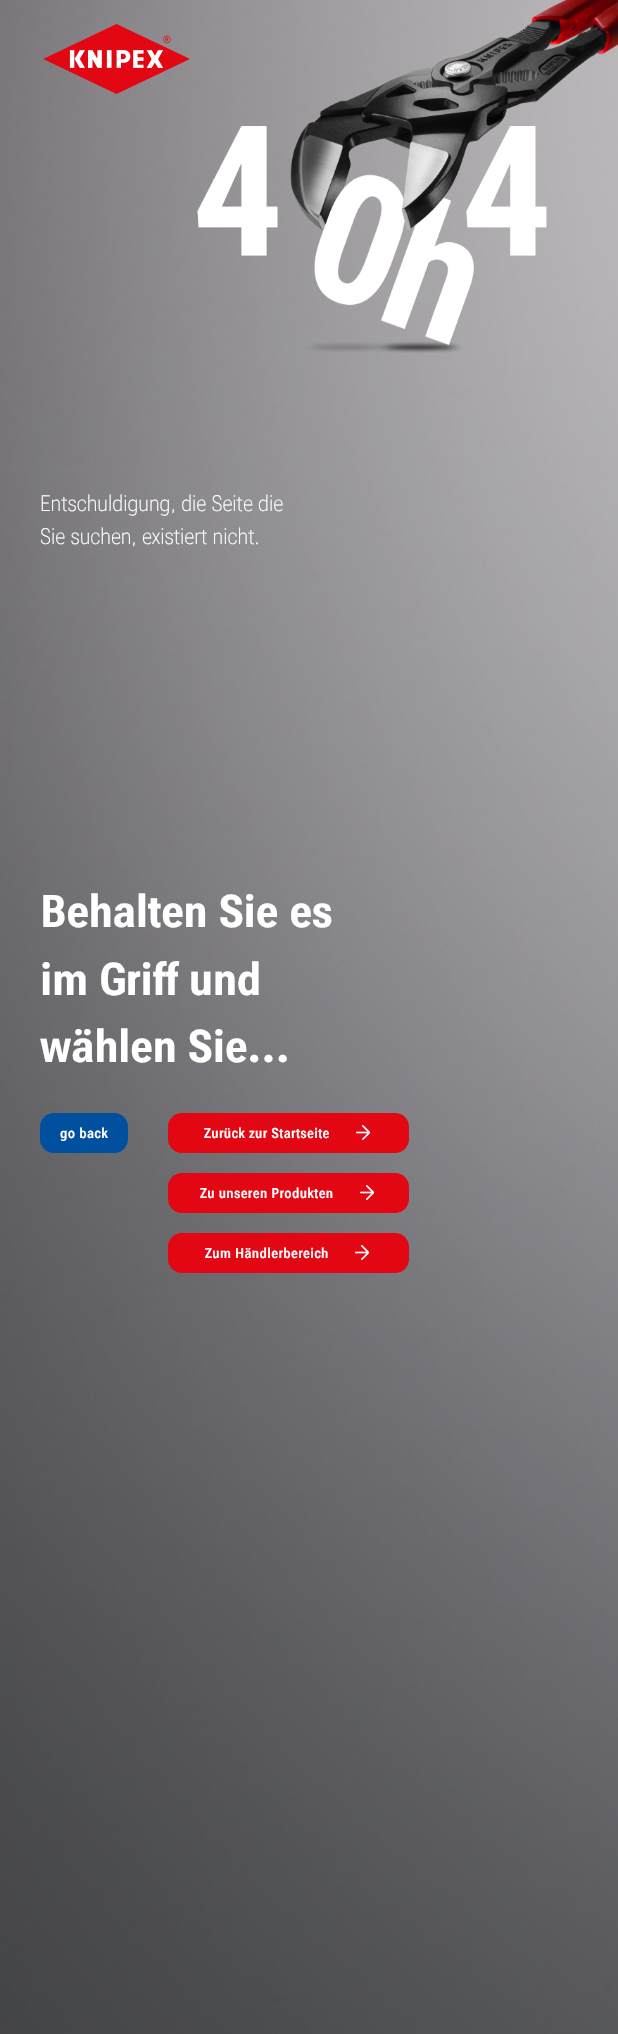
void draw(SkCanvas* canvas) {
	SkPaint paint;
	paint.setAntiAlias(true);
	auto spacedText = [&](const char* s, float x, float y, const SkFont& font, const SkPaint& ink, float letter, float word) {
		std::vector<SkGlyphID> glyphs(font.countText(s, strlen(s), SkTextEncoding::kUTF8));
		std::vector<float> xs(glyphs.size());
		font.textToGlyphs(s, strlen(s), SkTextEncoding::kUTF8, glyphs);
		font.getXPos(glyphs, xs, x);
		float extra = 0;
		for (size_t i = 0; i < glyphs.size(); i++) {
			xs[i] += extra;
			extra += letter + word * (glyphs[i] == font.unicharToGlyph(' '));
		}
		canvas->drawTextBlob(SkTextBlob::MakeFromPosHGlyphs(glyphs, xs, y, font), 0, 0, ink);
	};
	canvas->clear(0xffffffff);
	canvas->drawImageRect(SkImages::DeferredFromEncodedData(SkData::MakeFromFileName("img1.png")), SkRect::MakeXYWH(0, 0, 618, 2034), SkSamplingOptions());
	canvas->drawImageRect(SkImages::DeferredFromEncodedData(SkData::MakeFromFileName("img2.png")), SkRect::MakeXYWH(197, 0, 421, 353), SkSamplingOptions());
	canvas->drawImageRect(SkImages::DeferredFromEncodedData(SkData::MakeFromFileName("img3.png")), SkRect::MakeXYWH(43, 24, 147, 70), SkSamplingOptions());
	SkFont f1(fontMgr->matchFamilyStyle("Roboto Flex", SkFontStyle(100, SkFontStyle::kNormal_Width, SkFontStyle::kItalic_Slant)), 22);
	f1.setSubpixel(true);
	paint.setColor(0xffffffff);
	canvas->drawString("Entschuldigung, die Seite die", 40, 511, f1, paint);
	canvas->drawString("Sie suchen, existiert nicht.", 40, 544, f1, paint);
	SkFont f2(fontMgr->matchFamilyStyle("Roboto Flex", SkFontStyle::BoldItalic()), 45);
	f2.setSubpixel(true);
	canvas->drawString("Behalten Sie es", 40, 927, f2, paint);
	canvas->drawString("im Griff und", 40, 995, f2, paint);
	canvas->drawString("wählen Sie...", 40, 1062, f2, paint);
	paint.setColor(0xff00509f);
	canvas->drawRoundRect(SkRect::MakeXYWH(40, 1113, 88, 40), 14, 14, paint);
	SkFont f3(fontMgr->matchFamilyStyle("Roboto Flex", SkFontStyle(600, SkFontStyle::kNormal_Width, SkFontStyle::kItalic_Slant)), 14);
	f3.setSubpixel(true);
	paint.setColor(0xffffffff);
	spacedText("go back", 60, 1138, f3, paint, 0.35, 0);
	paint.setColor(0xffe30613);
	canvas->drawRoundRect(SkRect::MakeXYWH(168, 1113, 241, 40), 14, 14, paint);
	paint.setColor(0xffffffff);
	spacedText("Zurück zur Startseite", 204, 1138, f3, paint, 0.35, 0);
	canvas->drawImageRect(SkImages::DeferredFromEncodedData(SkData::MakeFromFileName("img4.png")), SkRect::MakeXYWH(356, 1125, 14, 15), SkSamplingOptions());
	paint.setColor(0xffe30613);
	canvas->drawRoundRect(SkRect::MakeXYWH(168, 1173, 241, 40), 14, 14, paint);
	paint.setColor(0xffffffff);
	spacedText("Zu unseren Produkten", 200, 1198, f3, paint, 0.35, 0);
	canvas->drawImageRect(SkImages::DeferredFromEncodedData(SkData::MakeFromFileName("img4.png")), SkRect::MakeXYWH(360, 1185, 14, 15), SkSamplingOptions());
	paint.setColor(0xffe30613);
	canvas->drawRoundRect(SkRect::MakeXYWH(168, 1233, 241, 40), 14, 14, paint);
	paint.setColor(0xffffffff);
	spacedText("Zum Händlerbereich", 205, 1258, f3, paint, 0.35, 0);
	canvas->drawImageRect(SkImages::DeferredFromEncodedData(SkData::MakeFromFileName("img4.png")), SkRect::MakeXYWH(355, 1245, 14, 15), SkSamplingOptions());
}
